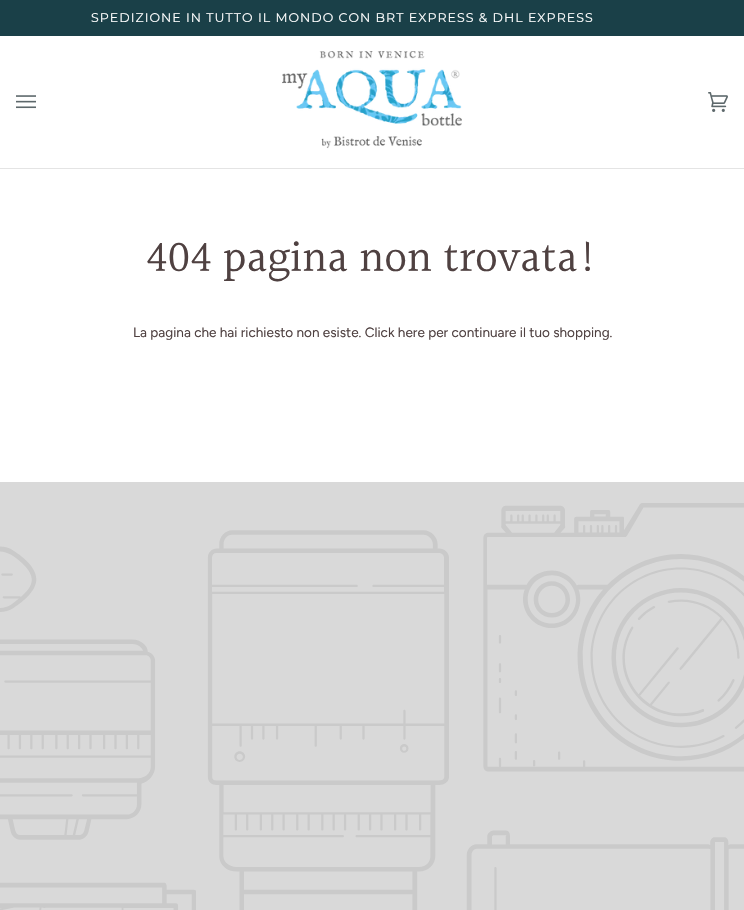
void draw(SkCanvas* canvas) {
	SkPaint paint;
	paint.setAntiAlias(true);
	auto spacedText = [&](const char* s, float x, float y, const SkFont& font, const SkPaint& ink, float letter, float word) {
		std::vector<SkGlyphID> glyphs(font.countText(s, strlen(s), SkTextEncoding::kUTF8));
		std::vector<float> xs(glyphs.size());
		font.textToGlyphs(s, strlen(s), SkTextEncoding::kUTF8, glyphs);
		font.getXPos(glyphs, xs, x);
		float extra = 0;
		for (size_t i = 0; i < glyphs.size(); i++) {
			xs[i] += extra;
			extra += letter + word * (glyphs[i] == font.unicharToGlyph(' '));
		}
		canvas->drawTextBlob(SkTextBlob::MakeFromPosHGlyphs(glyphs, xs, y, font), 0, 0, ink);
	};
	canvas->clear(0xffffffff);
	paint.setColor(0xffd9d9d9);
	canvas->drawRect(SkRect::MakeXYWH(0, 482, 744, 21), paint);
	paint.setColor(0xff1a4048);
	canvas->drawRect(SkRect::MakeXYWH(0, 0, 744, 36), paint);
	SkFont f1(fontMgr->matchFamilyStyle("Montserrat", SkFontStyle::Normal()), 12.6);
	f1.setSubpixel(true);
	paint.setColor(0xffffffff);
	spacedText("SPEDIZIONE IN TUTTO IL MONDO CON BRT EXPRESS & DHL EXPRESS", 91, 22, f1, paint, 1, 0);
	paint.setColor(0xffe4e4e4);
	canvas->drawRect(SkRect::MakeXYWH(0, 168, 744, 1), paint);
	canvas->drawImageRect(SkImages::DeferredFromEncodedData(SkData::MakeFromFileName("img1.png")), SkRect::MakeXYWH(16, 95, 20, 14), SkSamplingOptions());
	canvas->drawImageRect(SkImages::DeferredFromEncodedData(SkData::MakeFromFileName("img2.png")), SkRect::MakeXYWH(282, 51, 180, 98), SkSamplingOptions());
	canvas->drawImageRect(SkImages::DeferredFromEncodedData(SkData::MakeFromFileName("img3.png")), SkRect::MakeXYWH(708, 92, 20, 20), SkSamplingOptions());
	SkFont f2(fontMgr->matchFamilyStyle("Halant", SkFontStyle::Normal()), 44.9);
	f2.setSubpixel(true);
	paint.setColor(0xff4f4141);
	canvas->drawString("404 pagina non trovata!", 146, 273, f2, paint);
	SkFont f3(fontMgr->matchFamilyStyle("Figtree", SkFontStyle::Normal()), 13.55);
	f3.setSubpixel(true);
	canvas->drawString("La pagina che hai richiesto non esiste. Click here per continuare il tuo shopping.", 133, 337, f3, paint);
	canvas->drawImageRect(SkImages::DeferredFromEncodedData(SkData::MakeFromFileName("img4.png")), SkRect::MakeXYWH(0, 503, 744, 407), SkSamplingOptions());
}
